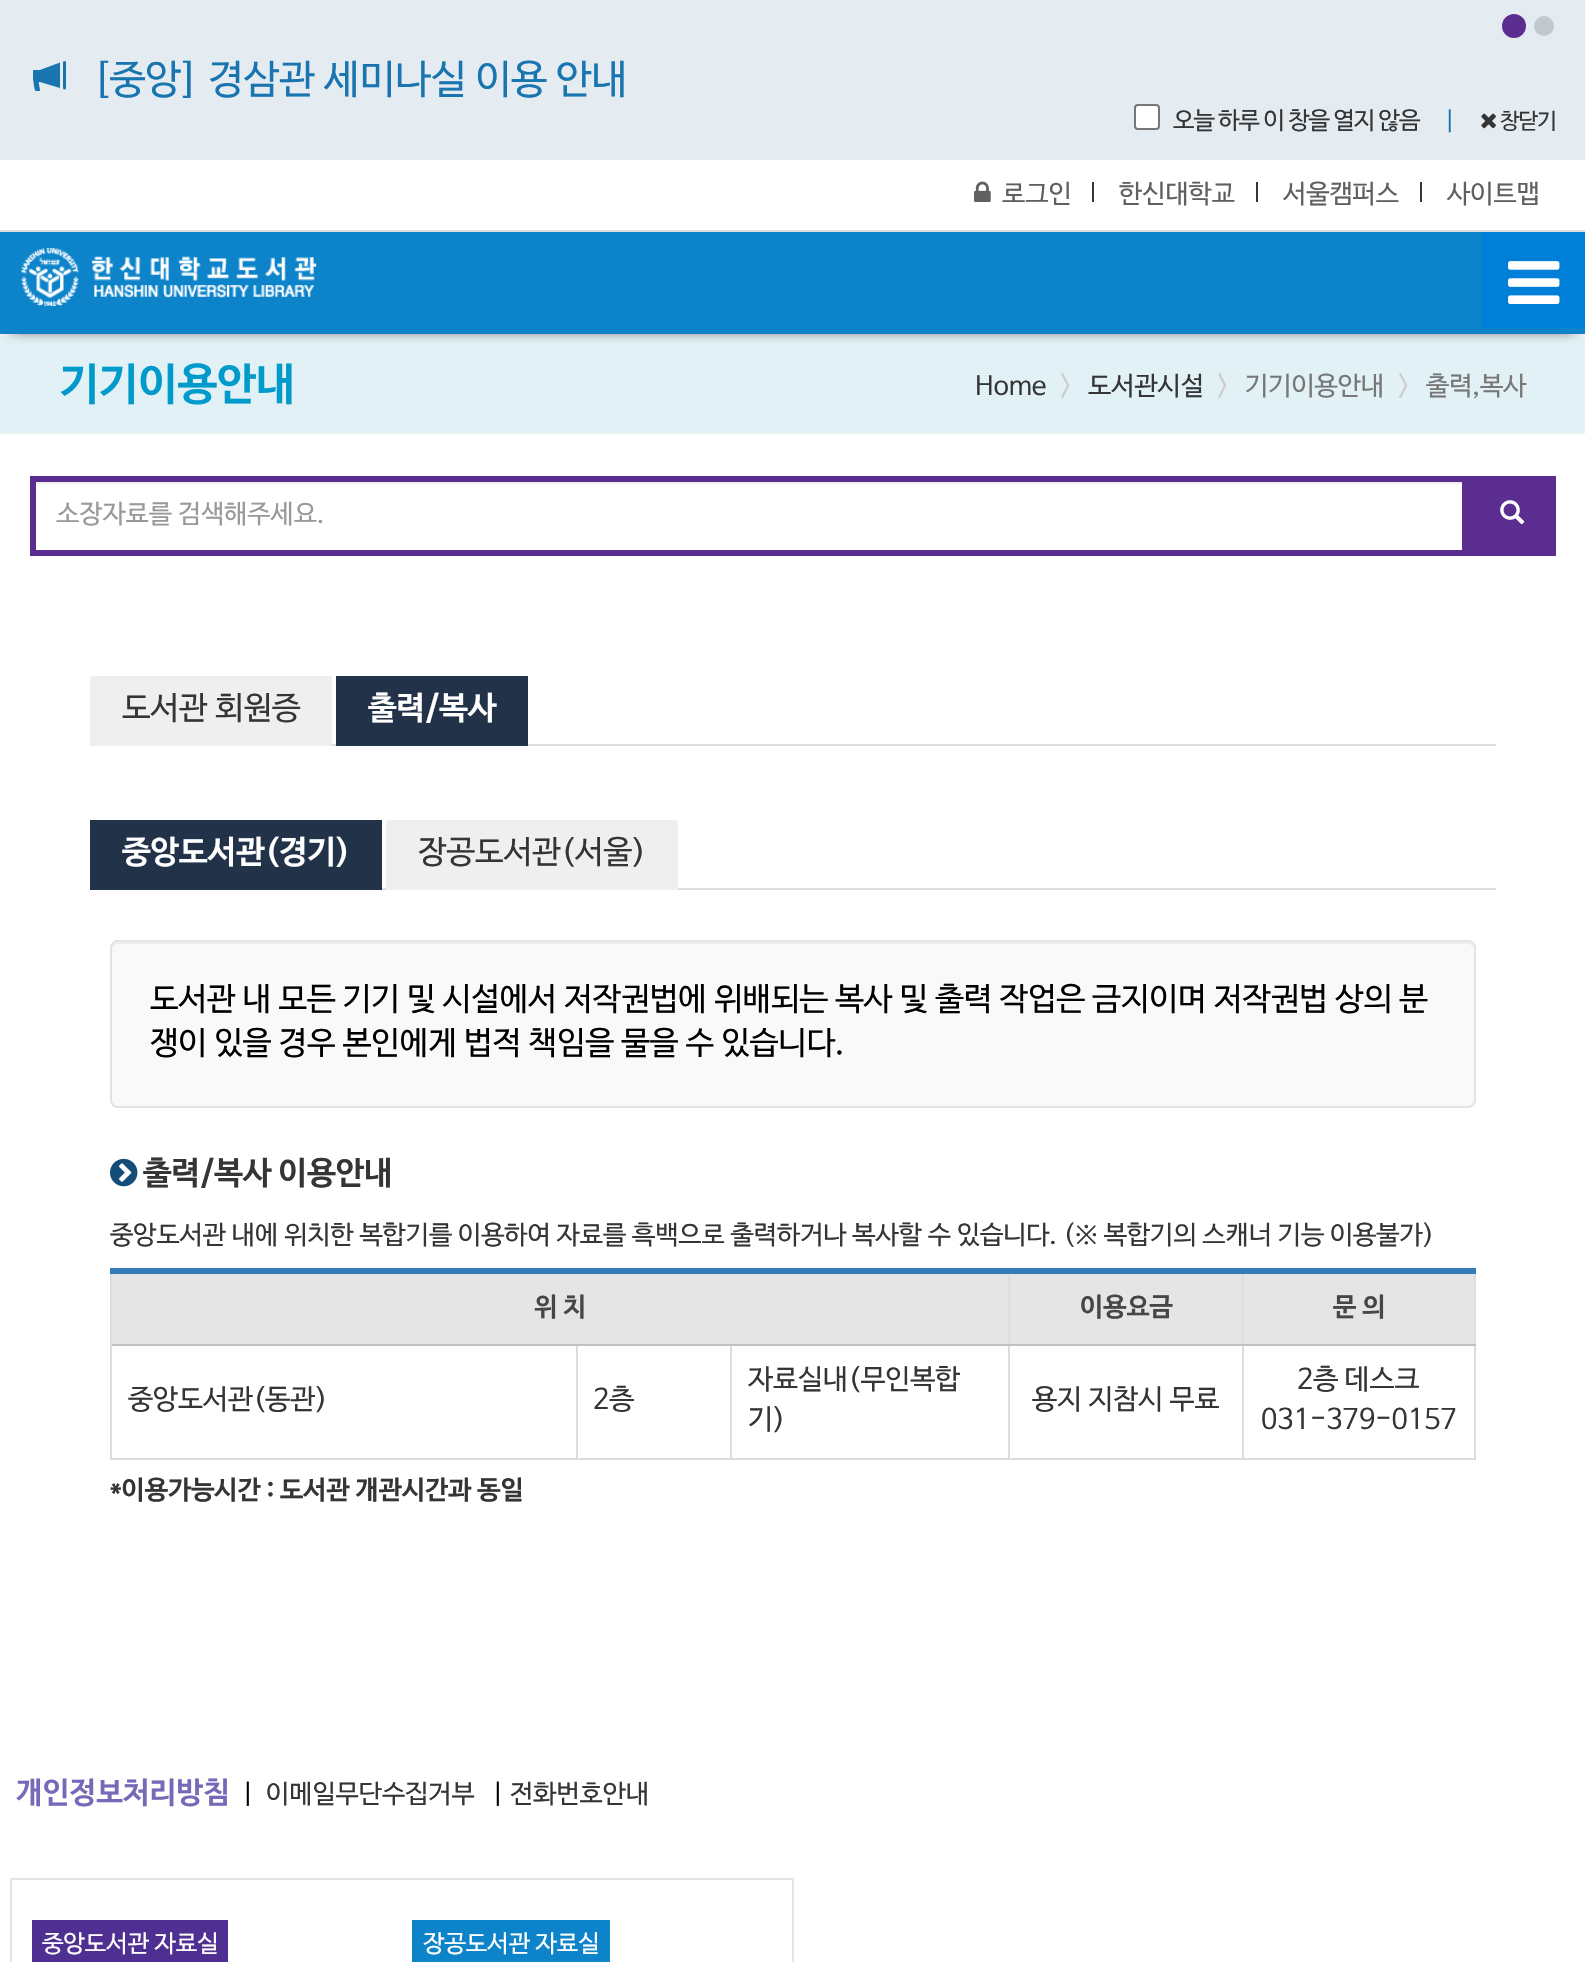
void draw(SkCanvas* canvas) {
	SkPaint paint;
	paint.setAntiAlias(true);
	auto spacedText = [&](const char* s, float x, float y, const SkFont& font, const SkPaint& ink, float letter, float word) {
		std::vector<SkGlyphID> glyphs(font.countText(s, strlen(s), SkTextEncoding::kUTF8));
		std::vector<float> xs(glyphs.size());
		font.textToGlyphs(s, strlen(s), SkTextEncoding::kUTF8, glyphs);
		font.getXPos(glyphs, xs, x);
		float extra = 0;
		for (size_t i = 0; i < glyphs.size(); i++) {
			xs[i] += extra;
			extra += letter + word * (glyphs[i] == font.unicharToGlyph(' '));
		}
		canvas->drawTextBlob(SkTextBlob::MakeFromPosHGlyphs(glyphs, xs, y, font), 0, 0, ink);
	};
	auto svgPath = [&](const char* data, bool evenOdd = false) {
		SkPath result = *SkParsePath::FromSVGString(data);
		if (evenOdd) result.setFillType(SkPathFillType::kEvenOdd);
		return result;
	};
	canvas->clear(0xffffffff);
	paint.setColor(0xffe4ecf2);
	canvas->drawRect(SkRect::MakeXYWH(0, 0, 1585, 160), paint);
	paint.setColor(0xff5c2d91);
	canvas->drawCircle(1514, 26, 12, paint);
	paint.setColor(0xffc2c9ce);
	canvas->drawCircle(1544, 26, 10, paint);
	canvas->drawImageRect(SkImages::DeferredFromEncodedData(SkData::MakeFromFileName("img1.png")), SkRect::MakeXYWH(33, 61, 33, 30), SkSamplingOptions());
	SkFont f1(fontMgr->matchFamilyStyle("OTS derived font", SkFontStyle::Normal()), 40);
	f1.setSubpixel(true);
	paint.setColor(0xff1975b0);
	canvas->drawString("[중앙] 경삼관 세미나실 이용 안내", 92, 92, f1, paint);
	paint.setColor(0xffffffff);
	canvas->drawRoundRect(SkRect::MakeXYWH(1135, 105, 24, 24), 3, 3, paint);
	paint.setStroke(true);
	paint.setStrokeWidth(2);
	paint.setColor(0xff767676);
	canvas->drawRoundRect(SkRect::MakeXYWH(1135, 105, 24, 24), 3, 3, paint);
	SkFont f2(fontMgr->matchFamilyStyle("OTS derived font", SkFontStyle::Normal()), 24);
	f2.setSubpixel(true);
	paint.setStroke(false);
	paint.setColor(0xff353535);
	spacedText("오늘 하루 이 창을 열지 않음", 1173, 128, f2, paint, -1, 0);
	paint.setColor(0xff1975b0);
	spacedText("｜", 1439, 128, f2, paint, -1, 0);
	canvas->drawImageRect(SkImages::DeferredFromEncodedData(SkData::MakeFromFileName("img2.png")), SkRect::MakeXYWH(1481, 113, 15, 16), SkSamplingOptions());
	SkFont f3(fontMgr->matchFamilyStyle("OTS derived font", SkFontStyle::Normal()), 22);
	f3.setSubpixel(true);
	paint.setColor(0xff353535);
	spacedText("창닫기", 1500, 128, f3, paint, -1, 0);
	canvas->drawImageRect(SkImages::DeferredFromEncodedData(SkData::MakeFromFileName("img3.png")), SkRect::MakeXYWH(974, 181, 17, 21), SkSamplingOptions());
	SkFont f4(fontMgr->matchFamilyStyle("OTS derived font", SkFontStyle::Normal()), 26);
	f4.setSubpixel(true);
	paint.setColor(0xff606060);
	canvas->drawString("로그인", 1002, 202, f4, paint);
	paint.setColor(0xff353535);
	canvas->drawRect(SkRect::MakeXYWH(1092, 182, 2, 20), paint);
	paint.setColor(0xff606060);
	canvas->drawString("한신대학교", 1119, 202, f4, paint);
	paint.setColor(0xff353535);
	canvas->drawRect(SkRect::MakeXYWH(1256, 182, 2, 20), paint);
	paint.setColor(0xff606060);
	canvas->drawString("서울캠퍼스", 1283, 202, f4, paint);
	paint.setColor(0xff353535);
	canvas->drawRect(SkRect::MakeXYWH(1420, 182, 2, 20), paint);
	paint.setColor(0xff606060);
	canvas->drawString("사이트맵", 1447, 202, f4, paint);
	paint.setColor(0xffe1f1f5);
	canvas->drawRect(SkRect::MakeXYWH(0, 336, 1585, 98), paint);
	paint.setColor(0xfff0f0f0);
	canvas->drawRect(SkRect::MakeXYWH(0, 334, 1585, 2), paint);
	paint.setColor(0xff222222);
	paint.setMaskFilter(SkMaskFilter::MakeBlur(kNormal_SkBlurStyle, 6));
	canvas->drawRect(SkRect::MakeXYWH(12, 250, 1562, 80), paint);
	paint.setMaskFilter(nullptr);
	paint.setColor(0xff0d83ca);
	canvas->drawRect(SkRect::MakeXYWH(0, 232, 1585, 102), paint);
	paint.setColor(0xffdddddd);
	canvas->drawRect(SkRect::MakeXYWH(0, 230, 1585, 2), paint);
	canvas->drawImageRect(SkImages::DeferredFromEncodedData(SkData::MakeFromFileName("img4.png")), SkRect::MakeXYWH(21, 248, 296, 58), SkSamplingOptions());
	paint.setColor(0xff007fd8);
	canvas->drawRect(SkRect::MakeXYWH(1482, 232, 103, 96), paint);
	canvas->drawImageRect(SkImages::DeferredFromEncodedData(SkData::MakeFromFileName("img5.png")), SkRect::MakeXYWH(1508, 261, 52, 43), SkSamplingOptions());
	paint.setStroke(true);
	paint.setColor(0xfff0f0f0);
	paint.setPathEffect(SkDashPathEffect::Make({{2, 2}}, 0));
	canvas->drawPath(svgPath("M0 433H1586"), paint);
	paint.setPathEffect(nullptr);
	SkFont f5(fontMgr->matchFamilyStyle("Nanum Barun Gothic", SkFontStyle::Bold()), 44);
	f5.setSubpixel(true);
	paint.setStroke(false);
	paint.setColor(0xff009acb);
	canvas->drawString("기기이용안내", 60, 398, f5, paint);
	paint.setColor(0xff353535);
	canvas->drawString("Home", 975, 394, f4, paint);
	paint.setColor(0xffcccccc);
	canvas->drawString(">", 1060, 394, f4, paint);
	paint.setColor(0xff353535);
	canvas->drawString("도서관시설", 1088, 394, f4, paint);
	paint.setColor(0xffcccccc);
	canvas->drawString(">", 1217, 394, f4, paint);
	paint.setColor(0xff777777);
	canvas->drawString("기기이용안내", 1245, 394, f4, paint);
	paint.setColor(0xffcccccc);
	canvas->drawString(">", 1398, 394, f4, paint);
	paint.setColor(0xff777777);
	canvas->drawString("출력,복사", 1426, 394, f4, paint);
	paint.setColor(0xffececec);
	canvas->drawRect(SkRect::MakeXYWH(36, 482, 1426, 2), paint);
	paint.setStroke(true);
	paint.setStrokeWidth(6);
	paint.setColor(0xff5c2d91);
	canvas->drawRect(SkRect::MakeXYWH(33, 479, 1432, 74), paint);
	paint.setStroke(false);
	paint.setColor(0xff999999);
	canvas->drawString("소장자료를 검색해주세요.", 56, 522, f4, paint);
	paint.setColor(0xff5c2d91);
	canvas->drawRect(SkRect::MakeXYWH(1468, 476, 88, 80), paint);
	canvas->drawImageRect(SkImages::DeferredFromEncodedData(SkData::MakeFromFileName("img6.png")), SkRect::MakeXYWH(1500, 500, 25, 25), SkSamplingOptions());
	paint.setColor(0xffdddddd);
	canvas->drawRect(SkRect::MakeXYWH(332, 744, 1164, 2), paint);
	paint.setColor(0xffefefef);
	canvas->drawRect(SkRect::MakeXYWH(90, 676, 242, 70), paint);
	SkFont f6(fontMgr->matchFamilyStyle("OTS derived font", SkFontStyle::Normal()), 32);
	f6.setSubpixel(true);
	paint.setColor(0xff353535);
	canvas->drawString("도서관 회원증", 122, 718, f6, paint);
	paint.setColor(0xff223249);
	canvas->drawRect(SkRect::MakeXYWH(336, 676, 192, 70), paint);
	SkFont f7(fontMgr->matchFamilyStyle("Nanum Barun Gothic", SkFontStyle::Bold()), 32);
	f7.setSubpixel(true);
	paint.setColor(0xffffffff);
	canvas->drawString("출력/복사", 368, 718, f7, paint);
	paint.setColor(0xffdddddd);
	canvas->drawRect(SkRect::MakeXYWH(382, 888, 1114, 2), paint);
	paint.setColor(0xff223249);
	canvas->drawRect(SkRect::MakeXYWH(90, 820, 292, 70), paint);
	paint.setColor(0xffffffff);
	canvas->drawString("중앙도서관(경기)", 122, 862, f7, paint);
	paint.setColor(0xffefefef);
	canvas->drawRect(SkRect::MakeXYWH(386, 820, 292, 70), paint);
	paint.setColor(0xff353535);
	canvas->drawString("장공도서관(서울)", 418, 862, f6, paint);
	paint.setColor(0xfff9f9f9);
	canvas->drawRoundRect(SkRect::MakeXYWH(110, 940, 1366, 168), 8, 8, paint);
	paint.setColor(0xffededed);
	canvas->drawPath(svgPath("M118 944H1468C1471 944 1474 947 1474 950V948C1474 945 1471 942 1468 942H118C115 942 112 945 112 948V950C112 947 115 944 118 944Z"), paint);
	paint.setStroke(true);
	paint.setStrokeWidth(2);
	paint.setColor(0xffe3e3e3);
	canvas->drawRoundRect(SkRect::MakeXYWH(111, 941, 1364, 166), 7, 7, paint);
	paint.setStroke(false);
	paint.setColor(0xff000000);
	canvas->drawString("도서관 내 모든 기기 및 시설에서 저작권법에 위배되는 복사 및 출력 작업은 금지이며 저작권법 상의 분", 150, 1009, f6, paint);
	canvas->drawString("쟁이 있을 경우 본인에게 법적 책임을 물을 수 있습니다.", 150, 1053, f6, paint);
	canvas->drawImageRect(SkImages::DeferredFromEncodedData(SkData::MakeFromFileName("img7.png")), SkRect::MakeXYWH(110, 1158, 28, 29), SkSamplingOptions());
	paint.setColor(0xff353535);
	canvas->drawString("출력/복사 이용안내", 143, 1183, f7, paint);
	canvas->drawString("중앙도서관 내에 위치한 복합기를 이용하여 자료를 흑백으로 출력하거나 복사할 수 있습니다. (※ 복합기의 스캐너 기능 이용불가)", 110, 1243, f4, paint);
	paint.setColor(0xffdddddd);
	canvas->drawRect(SkRect::MakeXYWH(1474, 1268, 2, 192), paint);
	canvas->drawRect(SkRect::MakeXYWH(110, 1346, 2, 114), paint);
	canvas->drawRect(SkRect::MakeXYWH(1242, 1458, 234, 2), paint);
	canvas->drawRect(SkRect::MakeXYWH(1242, 1344, 2, 116), paint);
	paint.setColor(0xffc1c1c1);
	canvas->drawRect(SkRect::MakeXYWH(1242, 1344, 234, 2), paint);
	paint.setColor(0xffdddddd);
	canvas->drawRect(SkRect::MakeXYWH(1242, 1270, 2, 76), paint);
	canvas->drawRect(SkRect::MakeXYWH(1008, 1458, 236, 2), paint);
	canvas->drawRect(SkRect::MakeXYWH(1008, 1344, 2, 116), paint);
	paint.setColor(0xffc1c1c1);
	canvas->drawRect(SkRect::MakeXYWH(1008, 1344, 236, 2), paint);
	paint.setColor(0xffdddddd);
	canvas->drawRect(SkRect::MakeXYWH(1008, 1270, 2, 76), paint);
	canvas->drawRect(SkRect::MakeXYWH(730, 1458, 280, 2), paint);
	canvas->drawRect(SkRect::MakeXYWH(730, 1344, 2, 116), paint);
	canvas->drawRect(SkRect::MakeXYWH(576, 1458, 156, 2), paint);
	canvas->drawRect(SkRect::MakeXYWH(576, 1344, 2, 116), paint);
	paint.setColor(0xffc1c1c1);
	canvas->drawRect(SkRect::MakeXYWH(110, 1344, 900, 2), paint);
	paint.setColor(0xffdddddd);
	canvas->drawRect(SkRect::MakeXYWH(110, 1270, 2, 76), paint);
	paint.setColor(0xff337ab7);
	canvas->drawRect(SkRect::MakeXYWH(110, 1268, 1366, 6), paint);
	paint.setColor(0xffe5e5e5);
	canvas->drawRect(SkRect::MakeXYWH(112, 1274, 896, 70), paint);
	SkFont f8(fontMgr->matchFamilyStyle("Nanum Barun Gothic", SkFontStyle::Bold()), 26);
	f8.setSubpixel(true);
	paint.setColor(0xff474646);
	canvas->drawString("위 치", 534, 1315, f8, paint);
	paint.setColor(0xffe5e5e5);
	canvas->drawRect(SkRect::MakeXYWH(1010, 1274, 232, 70), paint);
	paint.setColor(0xff474646);
	canvas->drawString("이용요금", 1080, 1315, f8, paint);
	paint.setColor(0xffe5e5e5);
	canvas->drawRect(SkRect::MakeXYWH(1244, 1274, 230, 70), paint);
	paint.setColor(0xff474646);
	canvas->drawString("문 의", 1333, 1315, f8, paint);
	paint.setColor(0xffdddddd);
	canvas->drawRect(SkRect::MakeXYWH(110, 1458, 468, 2), paint);
	SkFont f9(fontMgr->matchFamilyStyle("OTS derived font", SkFontStyle::Normal()), 28);
	f9.setSubpixel(true);
	paint.setColor(0xff353535);
	canvas->drawString("중앙도서관(동관)", 128, 1408, f9, paint);
	canvas->drawString("2층", 593, 1408, f9, paint);
	canvas->drawString("자료실내(무인복합", 748, 1388, f9, paint);
	canvas->drawString("기)", 748, 1428, f9, paint);
	canvas->drawString("용지 지참시 무료", 1032, 1408, f9, paint);
	canvas->drawString("2층 데스크", 1297, 1388, f9, paint);
	canvas->drawString("031-379-0157", 1261, 1428, f9, paint);
	canvas->drawString("*이용가능시간 : 도서관 개관시간과 동일", 110, 1498, f8, paint);
	SkFont f10(fontMgr->matchFamilyStyle("Nanum Barun Gothic", SkFontStyle::Bold()), 30);
	f10.setSubpixel(true);
	paint.setColor(0xff756ab7);
	canvas->drawString("개인정보처리방침", 16, 1802, f10, paint);
	paint.setColor(0xff000000);
	canvas->drawString("|", 242, 1802, f4, paint);
	paint.setColor(0xff353535);
	canvas->drawString("이메일무단수집거부", 266, 1802, f4, paint);
	paint.setColor(0xff000000);
	canvas->drawString("|", 492, 1802, f4, paint);
	paint.setColor(0xff353535);
	canvas->drawString("전화번호안내", 510, 1802, f4, paint);
	paint.setStroke(true);
	paint.setColor(0xffe5e5e5);
	canvas->drawRect(SkRect::MakeXYWH(11, 1879, 782, 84), paint);
	paint.setStroke(false);
	paint.setColor(0xff4f2f92);
	canvas->drawRect(SkRect::MakeXYWH(32, 1920, 196, 42), paint);
	paint.setColor(0xffffffff);
	canvas->drawString("중앙도서관 자료실", 42, 1951, f2, paint);
	paint.setColor(0xff0d83c9);
	canvas->drawRect(SkRect::MakeXYWH(412, 1920, 198, 42), paint);
	paint.setColor(0xffffffff);
	canvas->drawString("장공도서관 자료실", 423, 1951, f2, paint);
}
